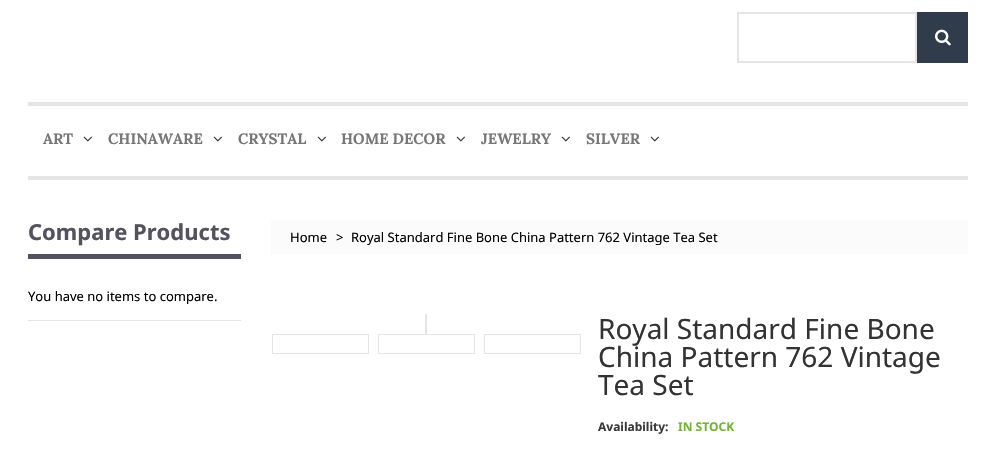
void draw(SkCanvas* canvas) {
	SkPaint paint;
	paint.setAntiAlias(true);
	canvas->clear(0xffffffff);
	paint.setStroke(true);
	paint.setStrokeWidth(2);
	paint.setColor(0xffe5e5e5);
	canvas->drawRect(SkRect::MakeXYWH(738, 13, 178, 49), paint);
	paint.setStroke(false);
	paint.setColor(0xff303c4b);
	canvas->drawRect(SkRect::MakeXYWH(917, 12, 51, 51), paint);
	canvas->drawImageRect(SkImages::DeferredFromEncodedData(SkData::MakeFromFileName("img1.png")), SkRect::MakeXYWH(935, 29, 16, 17), SkSamplingOptions());
	paint.setColor(0xffe5e5e5);
	canvas->drawRect(SkRect::MakeXYWH(28, 102, 940, 4), paint);
	canvas->drawRect(SkRect::MakeXYWH(28, 176, 940, 4), paint);
	SkFont f1(fontMgr->matchFamilyStyle("Lora", SkFontStyle::Bold()), 15);
	f1.setSubpixel(true);
	paint.setColor(0xff777777);
	canvas->drawString("ART", 43, 144, f1, paint);
	canvas->drawImageRect(SkImages::DeferredFromEncodedData(SkData::MakeFromFileName("img2.png")), SkRect::MakeXYWH(83, 136, 9, 6), SkSamplingOptions());
	canvas->drawString("CHINAWARE", 108, 144, f1, paint);
	canvas->drawImageRect(SkImages::DeferredFromEncodedData(SkData::MakeFromFileName("img2.png")), SkRect::MakeXYWH(213, 136, 9, 6), SkSamplingOptions());
	canvas->drawString("CRYSTAL", 238, 144, f1, paint);
	canvas->drawImageRect(SkImages::DeferredFromEncodedData(SkData::MakeFromFileName("img2.png")), SkRect::MakeXYWH(317, 136, 9, 6), SkSamplingOptions());
	canvas->drawString("HOME DECOR", 341, 144, f1, paint);
	canvas->drawImageRect(SkImages::DeferredFromEncodedData(SkData::MakeFromFileName("img2.png")), SkRect::MakeXYWH(456, 136, 9, 6), SkSamplingOptions());
	canvas->drawString("JEWELRY", 481, 144, f1, paint);
	canvas->drawImageRect(SkImages::DeferredFromEncodedData(SkData::MakeFromFileName("img2.png")), SkRect::MakeXYWH(561, 136, 9, 6), SkSamplingOptions());
	canvas->drawString("SILVER", 586, 144, f1, paint);
	canvas->drawImageRect(SkImages::DeferredFromEncodedData(SkData::MakeFromFileName("img2.png")), SkRect::MakeXYWH(650, 136, 9, 6), SkSamplingOptions());
	paint.setColor(0xff54525e);
	canvas->drawRect(SkRect::MakeXYWH(28, 254, 213, 5), paint);
	SkFont f2(fontMgr->matchFamilyStyle("Noto Sans", SkFontStyle::Bold()), 22);
	f2.setSubpixel(true);
	canvas->drawString("Compare Products", 28, 240, f2, paint);
	paint.setColor(0xffe5e5e5);
	canvas->drawRect(SkRect::MakeXYWH(28, 320, 213, 1), paint);
	SkFont f3(fontMgr->matchFamilyStyle("Noto Sans", SkFontStyle::Normal()), 13);
	f3.setSubpixel(true);
	paint.setColor(0xff000000);
	canvas->drawString("You have no items to compare.", 28, 301, f3, paint);
	paint.setColor(0xfffbfbfb);
	canvas->drawRect(SkRect::MakeXYWH(271, 220, 697, 34), paint);
	paint.setColor(0xff000000);
	canvas->drawString("Home", 290, 242, f3, paint);
	canvas->drawString(">", 336, 242, f3, paint);
	canvas->drawString("Royal Standard Fine Bone China Pattern 762 Vintage Tea Set", 351, 242, f3, paint);
	paint.setColor(0xffe5e5e5);
	canvas->drawRect(SkRect::MakeXYWH(425, 314, 2, 20), paint);
	paint.setStroke(true);
	paint.setStrokeWidth(1);
	canvas->drawRect(SkRect::MakeXYWH(272.5, 334.5, 96, 19), paint);
	canvas->drawRect(SkRect::MakeXYWH(378.5, 334.5, 96, 19), paint);
	canvas->drawRect(SkRect::MakeXYWH(484.5, 334.5, 96, 19), paint);
	SkFont f4(fontMgr->matchFamilyStyle("Noto Sans", SkFontStyle::Normal()), 28);
	f4.setSubpixel(true);
	paint.setStroke(false);
	paint.setColor(0xff333333);
	canvas->drawString("Royal Standard Fine Bone", 598, 339, f4, paint);
	canvas->drawString("China Pattern 762 Vintage", 598, 367, f4, paint);
	canvas->drawString("Tea Set", 598, 395, f4, paint);
	SkFont f5(fontMgr->matchFamilyStyle("Noto Sans", SkFontStyle::Bold()), 12);
	f5.setSubpixel(true);
	paint.setColor(0xff3a3a3a);
	canvas->drawString("Availability:", 598, 431, f5, paint);
	paint.setColor(0xff74b436);
	canvas->drawString("IN STOCK", 678, 431, f5, paint);
}
